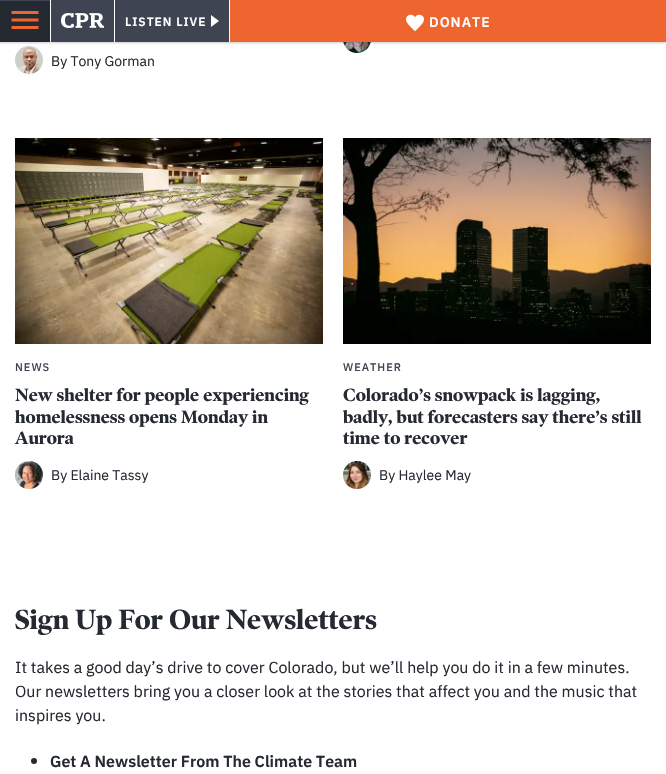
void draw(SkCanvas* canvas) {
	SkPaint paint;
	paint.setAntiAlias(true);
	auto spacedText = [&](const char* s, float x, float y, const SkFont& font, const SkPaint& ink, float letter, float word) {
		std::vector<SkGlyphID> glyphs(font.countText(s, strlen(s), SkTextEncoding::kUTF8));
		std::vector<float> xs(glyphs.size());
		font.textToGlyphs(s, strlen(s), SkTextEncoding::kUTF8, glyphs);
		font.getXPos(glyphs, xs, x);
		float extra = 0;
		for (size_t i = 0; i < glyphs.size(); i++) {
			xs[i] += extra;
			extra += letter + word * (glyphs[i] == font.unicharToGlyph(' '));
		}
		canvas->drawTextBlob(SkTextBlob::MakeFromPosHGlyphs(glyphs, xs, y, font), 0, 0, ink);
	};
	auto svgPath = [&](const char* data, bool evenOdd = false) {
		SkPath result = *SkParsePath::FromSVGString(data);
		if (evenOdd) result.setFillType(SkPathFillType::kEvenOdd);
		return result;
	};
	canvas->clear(0xffffffff);
	canvas->drawImageRect(SkImages::DeferredFromEncodedData(SkData::MakeFromFileName("img4.png")), SkRect::MakeXYWH(343, 42, 28, 11), SkSamplingOptions());
	canvas->drawImageRect(SkImages::DeferredFromEncodedData(SkData::MakeFromFileName("img5.png")), SkRect::MakeXYWH(15, 46, 28, 28), SkSamplingOptions());
	paint.setColor(0x33000000);
	paint.setMaskFilter(SkMaskFilter::MakeBlur(kNormal_SkBlurStyle, 1));
	canvas->drawRect(SkRect::MakeXYWH(0, 1, 666, 42), paint);
	paint.setMaskFilter(nullptr);
	paint.setColor(0xff3e4451);
	canvas->drawRect(SkRect::MakeXYWH(0, 0, 229, 42), paint);
	paint.setColor(0xff252931);
	canvas->drawRect(SkRect::MakeXYWH(0, 1, 50, 41), paint);
	canvas->drawImageRect(SkImages::DeferredFromEncodedData(SkData::MakeFromFileName("img1.png")), SkRect::MakeXYWH(11, 11, 28, 18), SkSamplingOptions());
	paint.setColor(0xffffffff);
	canvas->drawRect(SkRect::MakeXYWH(114, 0, 1, 42), paint);
	canvas->drawRect(SkRect::MakeXYWH(50, 0, 1, 42), paint);
	canvas->drawImageRect(SkImages::DeferredFromEncodedData(SkData::MakeFromFileName("img2.png")), SkRect::MakeXYWH(61, 13, 43, 15), SkSamplingOptions());
	canvas->drawRect(SkRect::MakeXYWH(229, 0, 1, 42), paint);
	SkFont f1(fontMgr->matchFamilyStyle("IBM Plex Sans", SkFontStyle(600, SkFontStyle::kNormal_Width, SkFontStyle::kUpright_Slant)), 12);
	f1.setSubpixel(true);
	spacedText("LISTEN LIVE", 125, 26, f1, paint, 1, 0);
	canvas->drawPath(svgPath("M211 27V15L219 21Z"), paint);
	paint.setColor(0xffef6530);
	canvas->drawRect(SkRect::MakeXYWH(230, 0, 436, 42), paint);
	canvas->drawImageRect(SkImages::DeferredFromEncodedData(SkData::MakeFromFileName("img3.png")), SkRect::MakeXYWH(406, 14, 18, 18), SkSamplingOptions());
	SkFont f2(fontMgr->matchFamilyStyle("IBM Plex Sans", SkFontStyle(600, SkFontStyle::kNormal_Width, SkFontStyle::kUpright_Slant)), 14);
	f2.setSubpixel(true);
	paint.setColor(0xffffffff);
	spacedText("DONATE", 429, 27, f2, paint, 1, 0);
	SkFont f3(fontMgr->matchFamilyStyle("IBM Plex Sans", SkFontStyle::Normal()), 14);
	f3.setSubpixel(true);
	paint.setColor(0xff252931);
	canvas->drawString("By Tony Gorman", 51, 66, f3, paint);
	canvas->drawImageRect(SkImages::DeferredFromEncodedData(SkData::MakeFromFileName("img6.png")), SkRect::MakeXYWH(15, 138, 308, 206), SkSamplingOptions());
	SkFont f4(fontMgr->matchFamilyStyle("IBM Plex Sans", SkFontStyle(500, SkFontStyle::kNormal_Width, SkFontStyle::kUpright_Slant)), 11);
	f4.setSubpixel(true);
	paint.setColor(0xff3e4451);
	spacedText("NEWS", 15, 371, f4, paint, 1, 0);
	SkFont f5(fontMgr->matchFamilyStyle("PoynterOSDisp", SkFontStyle::Bold()), 18);
	f5.setSubpixel(true);
	paint.setColor(0xff252931);
	canvas->drawString("New shelter for people experiencing", 15, 401, f5, paint);
	canvas->drawString("homelessness opens Monday in", 15, 423, f5, paint);
	canvas->drawString("Aurora", 15, 444, f5, paint);
	canvas->drawImageRect(SkImages::DeferredFromEncodedData(SkData::MakeFromFileName("img7.png")), SkRect::MakeXYWH(15, 461, 28, 28), SkSamplingOptions());
	canvas->drawString("By Elaine Tassy", 51, 480, f3, paint);
	canvas->drawImageRect(SkImages::DeferredFromEncodedData(SkData::MakeFromFileName("img8.png")), SkRect::MakeXYWH(343, 138, 308, 206), SkSamplingOptions());
	paint.setColor(0xff3e4451);
	spacedText("WEATHER", 343, 371, f4, paint, 1, 0);
	paint.setColor(0xff252931);
	canvas->drawString("Colorado’s snowpack is lagging,", 343, 401, f5, paint);
	canvas->drawString("badly, but forecasters say there’s still", 343, 423, f5, paint);
	canvas->drawString("time to recover", 343, 444, f5, paint);
	canvas->drawImageRect(SkImages::DeferredFromEncodedData(SkData::MakeFromFileName("img9.png")), SkRect::MakeXYWH(343, 461, 28, 28), SkSamplingOptions());
	canvas->drawString("By Haylee May", 379, 480, f3, paint);
	SkFont f6(fontMgr->matchFamilyStyle("PoynterOSDisp", SkFontStyle::Bold()), 28);
	f6.setSubpixel(true);
	canvas->drawString("Sign Up For Our Newsletters", 15, 629, f6, paint);
	SkFont f7(fontMgr->matchFamilyStyle("IBM Plex Sans", SkFontStyle::Normal()), 16);
	f7.setSubpixel(true);
	canvas->drawString("It takes a good day’s drive to cover Colorado, but we’ll help you do it in a few minutes.", 15, 673, f7, paint);
	canvas->drawString("Our newsletters bring you a closer look at the stories that affect you and the music that", 15, 697, f7, paint);
	canvas->drawString("inspires you.", 15, 721, f7, paint);
	canvas->drawCircle(34, 761, 3, paint);
	SkFont f8(fontMgr->matchFamilyStyle("IBM Plex Sans", SkFontStyle(600, SkFontStyle::kNormal_Width, SkFontStyle::kUpright_Slant)), 16);
	f8.setSubpixel(true);
	canvas->drawString("Get A Newsletter From The Climate Team", 50, 767, f8, paint);
}
